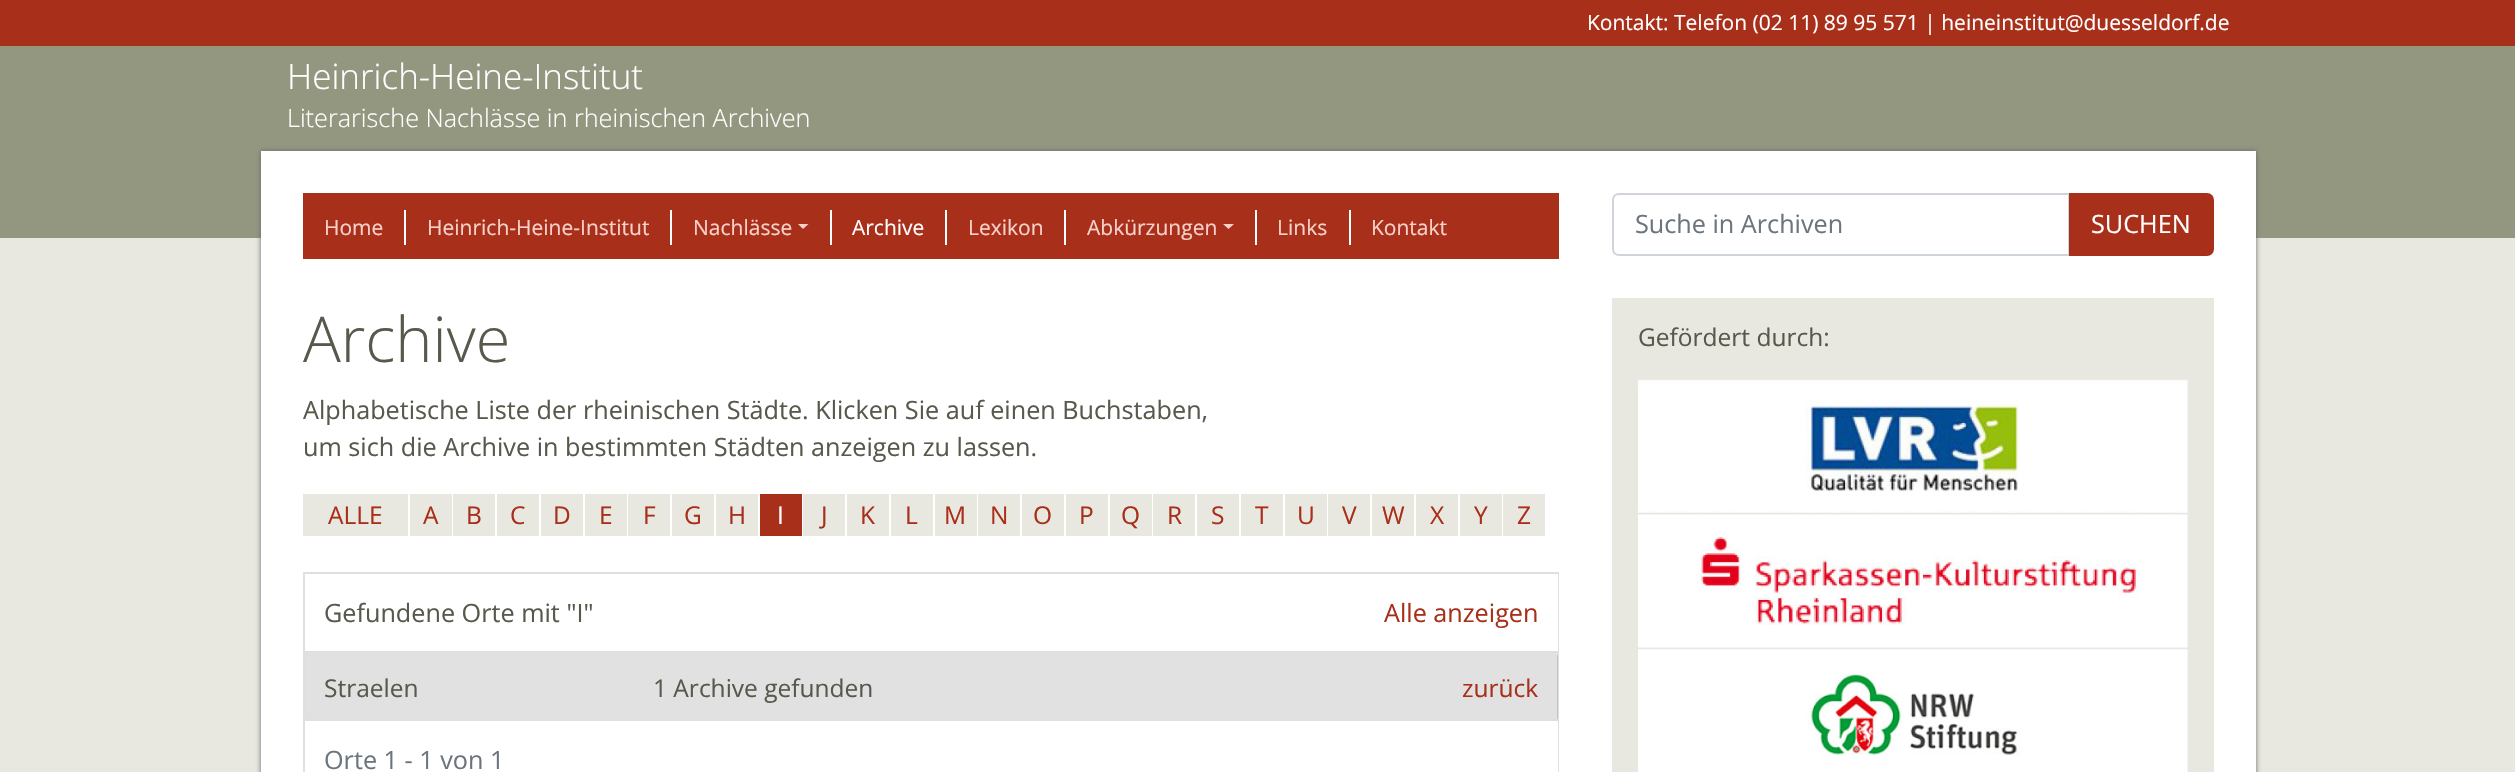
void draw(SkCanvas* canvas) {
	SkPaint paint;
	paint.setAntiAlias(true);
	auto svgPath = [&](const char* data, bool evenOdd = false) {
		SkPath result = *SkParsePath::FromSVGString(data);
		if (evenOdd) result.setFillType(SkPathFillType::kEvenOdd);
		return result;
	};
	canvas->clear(0xffe8e8e0);
	paint.setColor(0xffa82f1a);
	canvas->drawRect(SkRect::MakeXYWH(0, 0, 2515, 46), paint);
	SkFont f1(fontMgr->matchFamilyStyle("Open Sans", SkFontStyle::Normal()), 21);
	f1.setSubpixel(true);
	paint.setColor(0xffffffff);
	canvas->drawString("Kontakt: Telefon (02 11) 89 95 571 | heineinstitut@duesseldorf.de", 1587, 30, f1, paint);
	paint.setColor(0xff939780);
	canvas->drawRect(SkRect::MakeXYWH(0, 46, 2515, 192), paint);
	SkFont f2(fontMgr->matchFamilyStyle("Open Sans", SkFontStyle(300, SkFontStyle::kNormal_Width, SkFontStyle::kUpright_Slant)), 35);
	f2.setSubpixel(true);
	paint.setColor(0xffffffff);
	canvas->drawString("Heinrich-Heine-Institut", 287, 89, f2, paint);
	SkFont f3(fontMgr->matchFamilyStyle("Open Sans", SkFontStyle(300, SkFontStyle::kNormal_Width, SkFontStyle::kUpright_Slant)), 25.2);
	f3.setSubpixel(true);
	canvas->drawString("Literarische Nachlässe in rheinischen Archiven", 287, 127, f3, paint);
	paint.setColor(0xff666666);
	paint.setMaskFilter(SkMaskFilter::MakeBlur(kNormal_SkBlurStyle, 2.5));
	canvas->drawRect(SkRect::MakeXYWH(261, 151, 1995, 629), paint);
	paint.setMaskFilter(nullptr);
	paint.setColor(0xffffffff);
	canvas->drawRect(SkRect::MakeXYWH(261, 151, 1995, 621), paint);
	paint.setColor(0xffa82f1a);
	canvas->drawRect(SkRect::MakeXYWH(303, 193, 1256, 66), paint);
	paint.setColor(0xffffffff);
	canvas->drawRect(SkRect::MakeXYWH(404, 210, 2, 35), paint);
	paint.setColor(0xfff7d1ca);
	canvas->drawString("Home", 324, 235, f1, paint);
	paint.setColor(0xffffffff);
	canvas->drawRect(SkRect::MakeXYWH(670, 210, 2, 35), paint);
	paint.setColor(0xfff7d1ca);
	canvas->drawString("Heinrich-Heine-Institut", 427, 235, f1, paint);
	paint.setColor(0xffffffff);
	canvas->drawRect(SkRect::MakeXYWH(830, 210, 2, 35), paint);
	paint.setColor(0xfff7d1ca);
	canvas->drawString("Nachlässe", 693, 235, f1, paint);
	canvas->drawPath(svgPath("M798 224H808.5L803 229Z"), paint);
	paint.setColor(0xffffffff);
	canvas->drawRect(SkRect::MakeXYWH(945, 210, 2, 35), paint);
	canvas->drawString("Archive", 852, 235, f1, paint);
	canvas->drawRect(SkRect::MakeXYWH(1064, 210, 2, 35), paint);
	paint.setColor(0xfff7d1ca);
	canvas->drawString("Lexikon", 968, 235, f1, paint);
	paint.setColor(0xffffffff);
	canvas->drawRect(SkRect::MakeXYWH(1255, 210, 2, 35), paint);
	paint.setColor(0xfff7d1ca);
	canvas->drawString("Abkürzungen", 1087, 235, f1, paint);
	canvas->drawPath(svgPath("M1223 224H1234L1228.5 229Z"), paint);
	paint.setColor(0xffffffff);
	canvas->drawRect(SkRect::MakeXYWH(1349, 210, 2, 35), paint);
	paint.setColor(0xfff7d1ca);
	canvas->drawString("Links", 1277, 235, f1, paint);
	canvas->drawString("Kontakt", 1371, 235, f1, paint);
	SkFont f4(fontMgr->matchFamilyStyle("Open Sans", SkFontStyle(300, SkFontStyle::kNormal_Width, SkFontStyle::kUpright_Slant)), 63);
	f4.setSubpixel(true);
	paint.setColor(0xff57594c);
	canvas->drawString("Archive", 303, 362, f4, paint);
	SkFont f5(fontMgr->matchFamilyStyle("Open Sans", SkFontStyle::Normal()), 25.2);
	f5.setSubpixel(true);
	canvas->drawString("Alphabetische Liste der rheinischen Städte. Klicken Sie auf einen Buchstaben,", 303, 419, f5, paint);
	canvas->drawString("um sich die Archive in bestimmten Städten anzeigen zu lassen.", 303, 456, f5, paint);
	paint.setColor(0xffe8e8e0);
	canvas->drawRect(SkRect::MakeXYWH(303, 494, 105, 42), paint);
	SkFont f6(fontMgr->matchFamilyStyle("Open Sans", SkFontStyle::Normal()), 24.5);
	f6.setSubpixel(true);
	paint.setColor(0xffa82f1a);
	canvas->drawString("ALLE", 328, 524, f6, paint);
	paint.setColor(0xffe8e8e0);
	canvas->drawRect(SkRect::MakeXYWH(410, 494, 42, 42), paint);
	paint.setColor(0xffa82f1a);
	canvas->drawString("A", 423, 524, f6, paint);
	paint.setColor(0xffe8e8e0);
	canvas->drawRect(SkRect::MakeXYWH(453, 494, 42, 42), paint);
	paint.setColor(0xffa82f1a);
	canvas->drawString("B", 466, 524, f6, paint);
	paint.setColor(0xffe8e8e0);
	canvas->drawRect(SkRect::MakeXYWH(497, 494, 42, 42), paint);
	paint.setColor(0xffa82f1a);
	canvas->drawString("C", 510, 524, f6, paint);
	paint.setColor(0xffe8e8e0);
	canvas->drawRect(SkRect::MakeXYWH(541, 494, 42, 42), paint);
	paint.setColor(0xffa82f1a);
	canvas->drawString("D", 553, 524, f6, paint);
	paint.setColor(0xffe8e8e0);
	canvas->drawRect(SkRect::MakeXYWH(585, 494, 42, 42), paint);
	paint.setColor(0xffa82f1a);
	canvas->drawString("E", 599, 524, f6, paint);
	paint.setColor(0xffe8e8e0);
	canvas->drawRect(SkRect::MakeXYWH(628, 494, 42, 42), paint);
	paint.setColor(0xffa82f1a);
	canvas->drawString("F", 643, 524, f6, paint);
	paint.setColor(0xffe8e8e0);
	canvas->drawRect(SkRect::MakeXYWH(672, 494, 42, 42), paint);
	paint.setColor(0xffa82f1a);
	canvas->drawString("G", 684, 524, f6, paint);
	paint.setColor(0xffe8e8e0);
	canvas->drawRect(SkRect::MakeXYWH(716, 494, 42, 42), paint);
	paint.setColor(0xffa82f1a);
	canvas->drawString("H", 728, 524, f6, paint);
	canvas->drawRect(SkRect::MakeXYWH(760, 494, 42, 42), paint);
	paint.setColor(0xffffffff);
	canvas->drawString("I", 777, 524, f6, paint);
	paint.setColor(0xffe8e8e0);
	canvas->drawRect(SkRect::MakeXYWH(803, 494, 42, 42), paint);
	paint.setColor(0xffa82f1a);
	canvas->drawString("J", 821, 524, f6, paint);
	paint.setColor(0xffe8e8e0);
	canvas->drawRect(SkRect::MakeXYWH(847, 494, 42, 42), paint);
	paint.setColor(0xffa82f1a);
	canvas->drawString("K", 860, 524, f6, paint);
	paint.setColor(0xffe8e8e0);
	canvas->drawRect(SkRect::MakeXYWH(891, 494, 42, 42), paint);
	paint.setColor(0xffa82f1a);
	canvas->drawString("L", 905, 524, f6, paint);
	paint.setColor(0xffe8e8e0);
	canvas->drawRect(SkRect::MakeXYWH(935, 494, 42, 42), paint);
	paint.setColor(0xffa82f1a);
	canvas->drawString("M", 944, 524, f6, paint);
	paint.setColor(0xffe8e8e0);
	canvas->drawRect(SkRect::MakeXYWH(978, 494, 42, 42), paint);
	paint.setColor(0xffa82f1a);
	canvas->drawString("N", 990, 524, f6, paint);
	paint.setColor(0xffe8e8e0);
	canvas->drawRect(SkRect::MakeXYWH(1022, 494, 42, 42), paint);
	paint.setColor(0xffa82f1a);
	canvas->drawString("O", 1033, 524, f6, paint);
	paint.setColor(0xffe8e8e0);
	canvas->drawRect(SkRect::MakeXYWH(1066, 494, 42, 42), paint);
	paint.setColor(0xffa82f1a);
	canvas->drawString("P", 1079, 524, f6, paint);
	paint.setColor(0xffe8e8e0);
	canvas->drawRect(SkRect::MakeXYWH(1110, 494, 42, 42), paint);
	paint.setColor(0xffa82f1a);
	canvas->drawString("Q", 1121, 524, f6, paint);
	paint.setColor(0xffe8e8e0);
	canvas->drawRect(SkRect::MakeXYWH(1153, 494, 42, 42), paint);
	paint.setColor(0xffa82f1a);
	canvas->drawString("R", 1167, 524, f6, paint);
	paint.setColor(0xffe8e8e0);
	canvas->drawRect(SkRect::MakeXYWH(1197, 494, 42, 42), paint);
	paint.setColor(0xffa82f1a);
	canvas->drawString("S", 1211, 524, f6, paint);
	paint.setColor(0xffe8e8e0);
	canvas->drawRect(SkRect::MakeXYWH(1241, 494, 42, 42), paint);
	paint.setColor(0xffa82f1a);
	canvas->drawString("T", 1255, 524, f6, paint);
	paint.setColor(0xffe8e8e0);
	canvas->drawRect(SkRect::MakeXYWH(1285, 494, 42, 42), paint);
	paint.setColor(0xffa82f1a);
	canvas->drawString("U", 1297, 524, f6, paint);
	paint.setColor(0xffe8e8e0);
	canvas->drawRect(SkRect::MakeXYWH(1328, 494, 42, 42), paint);
	paint.setColor(0xffa82f1a);
	canvas->drawString("V", 1342, 524, f6, paint);
	paint.setColor(0xffe8e8e0);
	canvas->drawRect(SkRect::MakeXYWH(1372, 494, 42, 42), paint);
	paint.setColor(0xffa82f1a);
	canvas->drawString("W", 1382, 524, f6, paint);
	paint.setColor(0xffe8e8e0);
	canvas->drawRect(SkRect::MakeXYWH(1416, 494, 42, 42), paint);
	paint.setColor(0xffa82f1a);
	canvas->drawString("X", 1430, 524, f6, paint);
	paint.setColor(0xffe8e8e0);
	canvas->drawRect(SkRect::MakeXYWH(1460, 494, 42, 42), paint);
	paint.setColor(0xffa82f1a);
	canvas->drawString("Y", 1474, 524, f6, paint);
	paint.setColor(0xffe8e8e0);
	canvas->drawRect(SkRect::MakeXYWH(1503, 494, 42, 42), paint);
	paint.setColor(0xffa82f1a);
	canvas->drawString("Z", 1517, 524, f6, paint);
	paint.setStroke(true);
	paint.setStrokeWidth(2);
	paint.setColor(0xffdfdfdf);
	canvas->drawRect(SkRect::MakeXYWH(304, 573, 1254, 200), paint);
	paint.setStroke(false);
	paint.setColor(0xffffffff);
	canvas->drawRect(SkRect::MakeXYWH(1557, 574, 1, 77), paint);
	paint.setColor(0xffdfdfdf);
	canvas->drawRect(SkRect::MakeXYWH(305, 651, 1253, 2), paint);
	paint.setColor(0xff57594c);
	canvas->drawString("Gefundene Orte mit \"I\"", 324, 622, f5, paint);
	paint.setColor(0xffa82f1a);
	canvas->drawString("Alle anzeigen", 1384, 622, f5, paint);
	paint.setColor(0x12000000);
	canvas->drawRect(SkRect::MakeXYWH(305, 655, 1253, 64), paint);
	paint.setColor(0x0d000000);
	canvas->drawRect(SkRect::MakeXYWH(305, 655, 1253, 64), paint);
	paint.setColor(0xff57594c);
	canvas->drawString("Straelen", 324, 697, f6, paint);
	canvas->drawString("1 Archive gefunden", 653, 697, f6, paint);
	paint.setColor(0xffdee2e6);
	canvas->drawRect(SkRect::MakeXYWH(305, 653, 1254, 2), paint);
	paint.setColor(0xffa82f1a);
	canvas->drawString("zurück", 1462, 697, f6, paint);
	paint.setColor(0xffffffff);
	canvas->drawRect(SkRect::MakeXYWH(1557, 721, 1, 51), paint);
	paint.setColor(0xffdfdfdf);
	canvas->drawRect(SkRect::MakeXYWH(305, 719, 1253, 2), paint);
	paint.setColor(0xff6c757d);
	canvas->drawString("Orte 1 - 1 von 1", 324, 769, f5, paint);
	paint.setStroke(true);
	paint.setColor(0xffced4da);
	canvas->drawPath(svgPath("M1619 194H2069V255H1619C1615.5 255 1613 252.5 1613 249V200C1613 196.5 1615.5 194 1619 194Z"), paint);
	paint.setStroke(false);
	paint.setColor(0xff6c757d);
	canvas->drawString("Suche in Archiven", 1635, 233, f5, paint);
	paint.setColor(0xffa82f1a);
	canvas->drawPath(svgPath("M2070 194H2207C2210.5 194 2213 196.5 2213 200V249C2213 252.5 2210.5 255 2207 255H2070Z"), paint);
	paint.setStroke(true);
	canvas->drawPath(svgPath("M2070 194H2207C2210.5 194 2213 196.5 2213 200V249C2213 252.5 2210.5 255 2207 255H2070Z"), paint);
	paint.setStroke(false);
	paint.setColor(0xffffffff);
	canvas->drawString("SUCHEN", 2091, 233, f5, paint);
	paint.setColor(0xffe8e8e0);
	canvas->drawRect(SkRect::MakeXYWH(1612, 298, 602, 474), paint);
	paint.setColor(0xff57594c);
	canvas->drawString("Gefördert durch:", 1638, 346, f6, paint);
	canvas->drawImageRect(SkImages::DeferredFromEncodedData(SkData::MakeFromFileName("img1.png")), SkRect::MakeXYWH(1638, 379, 550, 134), SkSamplingOptions());
	canvas->drawImageRect(SkImages::DeferredFromEncodedData(SkData::MakeFromFileName("img2.png")), SkRect::MakeXYWH(1638, 514, 550, 134), SkSamplingOptions());
	canvas->drawImageRect(SkImages::DeferredFromEncodedData(SkData::MakeFromFileName("img3.png")), SkRect::MakeXYWH(1638, 649, 550, 123), SkSamplingOptions());
}
